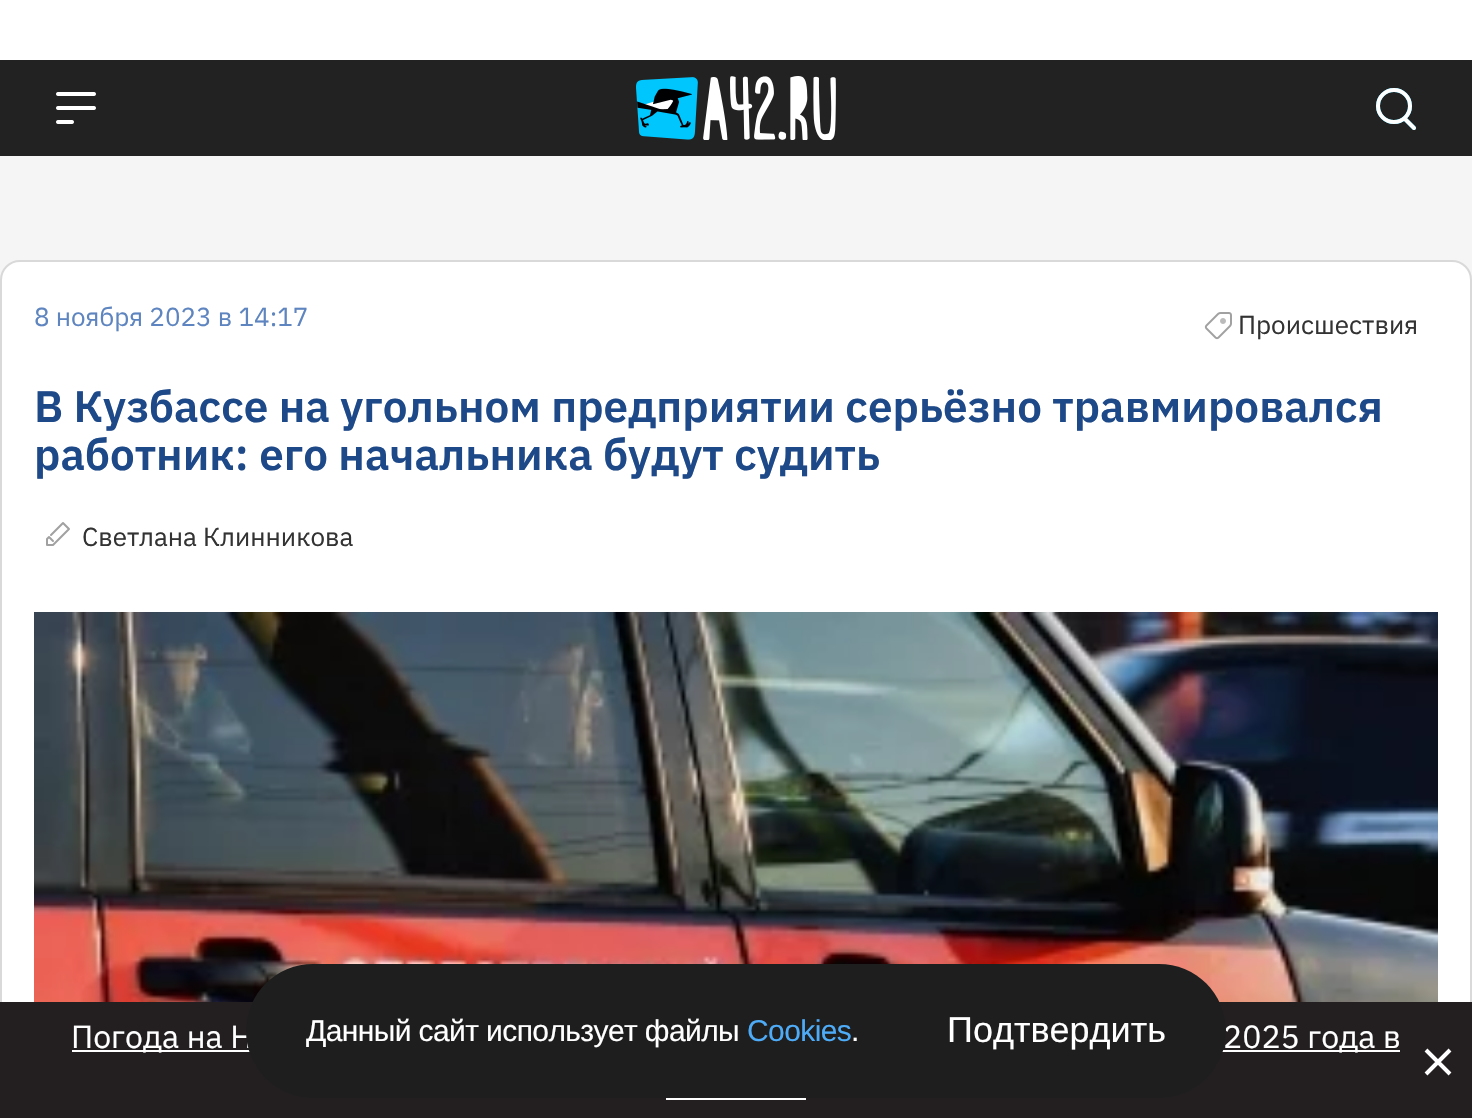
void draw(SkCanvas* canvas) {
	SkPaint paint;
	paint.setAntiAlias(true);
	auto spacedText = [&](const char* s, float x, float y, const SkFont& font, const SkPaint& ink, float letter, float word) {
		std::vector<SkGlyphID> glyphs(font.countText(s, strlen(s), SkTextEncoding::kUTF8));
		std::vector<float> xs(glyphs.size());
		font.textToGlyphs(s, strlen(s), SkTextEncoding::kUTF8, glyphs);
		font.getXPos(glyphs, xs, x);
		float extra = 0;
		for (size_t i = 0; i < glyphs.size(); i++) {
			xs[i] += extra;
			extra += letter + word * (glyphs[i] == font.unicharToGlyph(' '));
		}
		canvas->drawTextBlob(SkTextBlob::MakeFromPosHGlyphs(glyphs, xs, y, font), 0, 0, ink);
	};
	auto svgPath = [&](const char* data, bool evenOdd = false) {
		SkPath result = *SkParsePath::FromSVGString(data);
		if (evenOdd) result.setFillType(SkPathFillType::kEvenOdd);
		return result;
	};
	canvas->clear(0xffffffff);
	paint.setColor(0xfff5f5f5);
	canvas->drawRect(SkRect::MakeXYWH(0, 156, 1472, 124), paint);
	paint.setColor(0xffffffff);
	canvas->drawRoundRect(SkRect::MakeXYWH(1, 261, 1470, 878), 19, 19, paint);
	paint.setStroke(true);
	paint.setStrokeWidth(2);
	paint.setColor(0xffd9d9d9);
	canvas->drawRoundRect(SkRect::MakeXYWH(1, 261, 1470, 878), 19, 19, paint);
	SkFont f1(fontMgr->matchFamilyStyle("IBM Plex Sans", SkFontStyle::Normal()), 26);
	f1.setSubpixel(true);
	paint.setStroke(false);
	paint.setColor(0xff5e85bf);
	canvas->drawString("8 ноября 2023 в 14:17", 34, 326, f1, paint);
	canvas->drawImageRect(SkImages::DeferredFromEncodedData(SkData::MakeFromFileName("img1.png")), SkRect::MakeXYWH(1204, 312, 28, 28), SkSamplingOptions());
	paint.setColor(0xff333333);
	canvas->drawString("Происшествия", 1238, 334, f1, paint);
	SkFont f2(fontMgr->matchFamilyStyle("IBM Plex Sans", SkFontStyle(600, SkFontStyle::kNormal_Width, SkFontStyle::kUpright_Slant)), 44);
	f2.setSubpixel(true);
	paint.setColor(0xff1e4989);
	canvas->drawString("В Кузбассе на угольном предприятии серьёзно травмировался", 34, 422, f2, paint);
	canvas->drawString("работник: его начальника будут судить", 34, 470, f2, paint);
	paint.setStroke(true);
	paint.setStrokeCap(SkPaint::kRound_Cap);
	paint.setStrokeJoin(SkPaint::kRound_Join);
	paint.setColor(0xffa1a1a1);
	canvas->drawPath(svgPath("M51 535L63 523L69 529L53 545H47V539L49 537L53 541"), paint);
	paint.setStroke(false);
	paint.setColor(0xff333333);
	canvas->drawString("Светлана Клинникова", 82, 546, f1, paint);
	canvas->drawImageRect(SkImages::DeferredFromEncodedData(SkData::MakeFromFileName("img2.png")), SkRect::MakeXYWH(34, 612, 1404, 390), SkSamplingOptions());
	paint.setColor(0xff222222);
	canvas->drawRect(SkRect::MakeXYWH(0, 60, 1472, 96), paint);
	canvas->drawImageRect(SkImages::DeferredFromEncodedData(SkData::MakeFromFileName("img3.png")), SkRect::MakeXYWH(56, 92, 40, 32), SkSamplingOptions());
	canvas->drawImageRect(SkImages::DeferredFromEncodedData(SkData::MakeFromFileName("img4.png")), SkRect::MakeXYWH(636, 76, 200, 64), SkSamplingOptions());
	paint.setStroke(true);
	paint.setStrokeWidth(4);
	paint.setStrokeCap(SkPaint::kButt_Cap);
	paint.setStrokeJoin(SkPaint::kMiter_Join);
	paint.setColor(0xff00c7ff);
	canvas->drawCircle(1394, 106, 16, paint);
	paint.setStrokeCap(SkPaint::kRound_Cap);
	paint.setStrokeJoin(SkPaint::kRound_Join);
	canvas->drawPath(svgPath("M1414 128L1405 119"), paint);
	paint.setStrokeCap(SkPaint::kButt_Cap);
	paint.setStrokeJoin(SkPaint::kMiter_Join);
	paint.setColor(0xffffffff);
	canvas->drawCircle(1394, 106, 16, paint);
	paint.setStrokeCap(SkPaint::kRound_Cap);
	paint.setStrokeJoin(SkPaint::kRound_Join);
	canvas->drawPath(svgPath("M1414 128L1405 119"), paint);
	paint.setStroke(false);
	paint.setColor(0xff231f20);
	canvas->drawRect(SkRect::MakeXYWH(0, 1002, 1472, 116), paint);
	paint.setColor(0xffffffff);
	canvas->drawRect(SkRect::MakeXYWH(72, 1050, 1328, 2), paint);
	SkFont f3(fontMgr->matchFamilyStyle("IBM Plex Sans", SkFontStyle::Normal()), 32);
	f3.setSubpixel(true);
	canvas->drawString("Погода на Н", 71, 1048, f3, paint);
	canvas->drawString("2025 года в", 1223, 1048, f3, paint);
	paint.setColor(0xff1e1e1e);
	canvas->drawRoundRect(SkRect::MakeXYWH(246, 964, 980, 134), 67, 67, paint);
	SkFont f4(fontMgr->matchFamilyStyle("Liberation Sans", SkFontStyle::Normal()), 30);
	f4.setSubpixel(true);
	paint.setColor(0xffffffff);
	spacedText("Данный сайт использует файлы", 306, 1041, f4, paint, -0.6, 0);
	paint.setColor(0xff4dabf7);
	spacedText("Cookies", 747, 1041, f4, paint, -0.6, 0);
	paint.setColor(0xffffffff);
	spacedText(".", 851, 1041, f4, paint, -0.6, 0);
	SkFont f5(fontMgr->matchFamilyStyle("Liberation Sans", SkFontStyle::Normal()), 36);
	f5.setSubpixel(true);
	canvas->drawString("Подтвердить", 947, 1042, f5, paint);
	canvas->drawRect(SkRect::MakeXYWH(666, 1098, 140, 2), paint);
	paint.setStroke(true);
	paint.setStrokeCap(SkPaint::kButt_Cap);
	paint.setStrokeJoin(SkPaint::kMiter_Join);
	canvas->drawPath(svgPath("M1426 1050L1438 1062M1450 1074L1438 1062M1438 1062L1450 1050M1438 1062L1426 1074"), paint);
}
